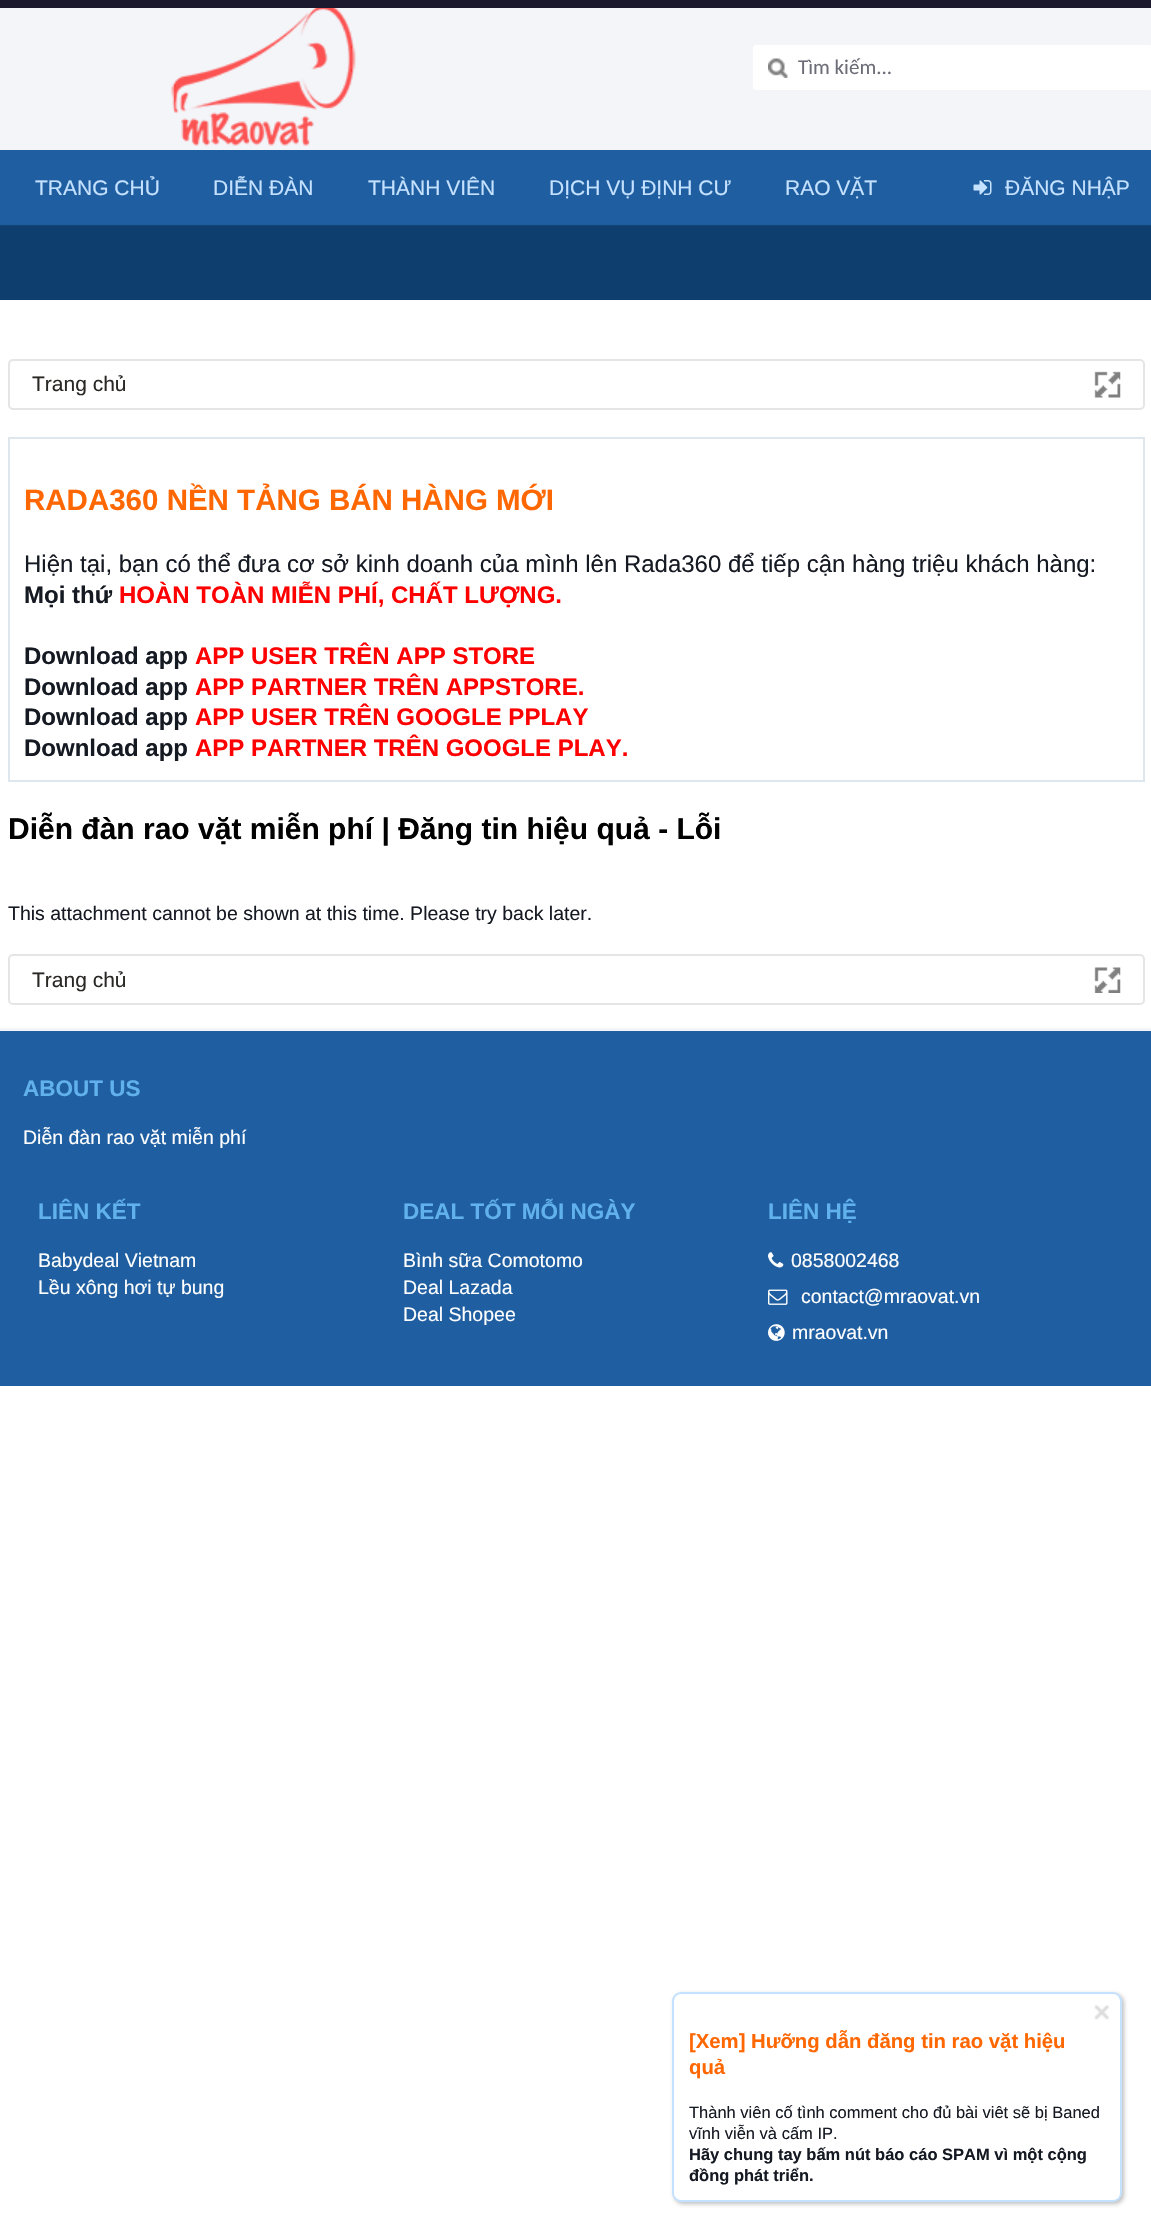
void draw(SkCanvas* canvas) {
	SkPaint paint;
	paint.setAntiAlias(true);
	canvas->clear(0xffffffff);
	paint.setColor(0xff1c192f);
	canvas->drawRect(SkRect::MakeXYWH(0, 0, 1151, 8), paint);
	paint.setColor(0xfff3f5f9);
	canvas->drawRect(SkRect::MakeXYWH(0, 8, 1151, 142), paint);
	canvas->drawImageRect(SkImages::DeferredFromEncodedData(SkData::MakeFromFileName("img1.png")), SkRect::MakeXYWH(170, 8, 186, 138), SkSamplingOptions());
	paint.setColor(0xffffffff);
	canvas->drawRoundRect(SkRect::MakeXYWH(753, 45, 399, 45), 3, 3, paint);
	canvas->drawImageRect(SkImages::DeferredFromEncodedData(SkData::MakeFromFileName("img2.png")), SkRect::MakeXYWH(768, 58, 20, 20), SkSamplingOptions());
	SkFont f1(fontMgr->matchFamilyStyle("Carlito", SkFontStyle::Normal()), 21);
	f1.setSubpixel(true);
	paint.setColor(0xff6d6d78);
	canvas->drawString("Tìm kiếm...", 798, 74, f1, paint);
	canvas->drawImageRect(SkImages::DeferredFromEncodedData(SkData::MakeFromFileName("img3.png")), SkRect::MakeXYWH(0, 150, 1151, 150), SkSamplingOptions());
	SkFont f2(fontMgr->matchFamilyStyle("Liberation Sans", SkFontStyle::Normal()), 21);
	f2.setSubpixel(true);
	paint.setColor(0xffc4e1ff);
	canvas->drawString("TRANG CHỦ", 35, 195, f2, paint);
	canvas->drawString("DIỄN ĐÀN", 213, 195, f2, paint);
	canvas->drawString("THÀNH VIÊN", 368, 195, f2, paint);
	canvas->drawString("DỊCH VỤ ĐỊNH CƯ", 549, 195, f2, paint);
	canvas->drawString("RAO VẶT", 785, 195, f2, paint);
	canvas->drawImageRect(SkImages::DeferredFromEncodedData(SkData::MakeFromFileName("img4.png")), SkRect::MakeXYWH(973, 180, 19, 15), SkSamplingOptions());
	canvas->drawString("ĐĂNG NHẬP", 1005, 195, f2, paint);
	paint.setStroke(true);
	paint.setStrokeWidth(2);
	paint.setColor(0xffe5e5e5);
	canvas->drawRoundRect(SkRect::MakeXYWH(9, 360, 1135, 49), 4, 4, paint);
	paint.setStroke(false);
	paint.setColor(0xff2a2825);
	canvas->drawString("Trang chủ", 32, 391, f2, paint);
	canvas->drawImageRect(SkImages::DeferredFromEncodedData(SkData::MakeFromFileName("img5.png")), SkRect::MakeXYWH(1094, 371, 27, 27), SkSamplingOptions());
	paint.setStroke(true);
	paint.setColor(0xffdee6ee);
	canvas->drawRect(SkRect::MakeXYWH(9, 438, 1135, 343), paint);
	SkFont f3(fontMgr->matchFamilyStyle("Liberation Sans", SkFontStyle::Bold()), 29.5);
	f3.setSubpixel(true);
	paint.setStroke(false);
	paint.setColor(0xfffe6702);
	canvas->drawString("RADA360 NỀN TẢNG BÁN HÀNG MỚI", 24, 510, f3, paint);
	SkFont f4(fontMgr->matchFamilyStyle("Liberation Sans", SkFontStyle::Normal()), 24);
	f4.setSubpixel(true);
	paint.setColor(0xff151922);
	canvas->drawString("Hiện tại, bạn có thể đưa cơ sở kinh doanh của mình lên Rada360 để tiếp cận hàng triệu khách hàng:", 24, 572, f4, paint);
	SkFont f5(fontMgr->matchFamilyStyle("Liberation Sans", SkFontStyle::Bold()), 24);
	f5.setSubpixel(true);
	canvas->drawString("Mọi thứ", 24, 603, f5, paint);
	paint.setColor(0xffff0000);
	canvas->drawString("HOÀN TOÀN MIỄN PHÍ, CHẤT LƯỢNG.", 119, 603, f5, paint);
	paint.setColor(0xff151922);
	canvas->drawString("Download app", 24, 664, f5, paint);
	paint.setColor(0xffff0000);
	canvas->drawString("APP USER TRÊN APP STORE", 195, 664, f5, paint);
	paint.setColor(0xff151922);
	canvas->drawString("Download app", 24, 695, f5, paint);
	paint.setColor(0xffff0000);
	canvas->drawString("APP PARTNER TRÊN APPSTORE.", 195, 695, f5, paint);
	paint.setColor(0xff151922);
	canvas->drawString("Download app", 24, 725, f5, paint);
	paint.setColor(0xffff0000);
	canvas->drawString("APP USER TRÊN GOOGLE PPLAY", 195, 725, f5, paint);
	paint.setColor(0xff151922);
	canvas->drawString("Download app", 24, 756, f5, paint);
	paint.setColor(0xffff0000);
	canvas->drawString("APP PARTNER TRÊN GOOGLE PLAY.", 195, 756, f5, paint);
	SkFont f6(fontMgr->matchFamilyStyle("Liberation Sans", SkFontStyle::Bold()), 30);
	f6.setSubpixel(true);
	paint.setColor(0xff000000);
	canvas->drawString("Diễn đàn rao vặt miễn phí | Đăng tin hiệu quả - Lỗi", 8, 839, f6, paint);
	SkFont f7(fontMgr->matchFamilyStyle("Liberation Sans", SkFontStyle::Normal()), 19.5);
	f7.setSubpixel(true);
	paint.setColor(0xff151922);
	canvas->drawString("This attachment cannot be shown at this time. Please try back later.", 8, 920, f7, paint);
	paint.setStroke(true);
	paint.setColor(0xffe5e5e5);
	canvas->drawRoundRect(SkRect::MakeXYWH(9, 955, 1135, 49), 4, 4, paint);
	paint.setStroke(false);
	paint.setColor(0xff2a2825);
	canvas->drawString("Trang chủ", 32, 987, f2, paint);
	canvas->drawImageRect(SkImages::DeferredFromEncodedData(SkData::MakeFromFileName("img6.png")), SkRect::MakeXYWH(1094, 967, 27, 26), SkSamplingOptions());
	paint.setColor(0x40000000);
	paint.setMaskFilter(SkMaskFilter::MakeBlur(kNormal_SkBlurStyle, 2));
	canvas->drawRoundRect(SkRect::MakeXYWH(674, 1994, 450, 210), 9, 9, paint);
	paint.setMaskFilter(nullptr);
	paint.setColor(0xffffffff);
	canvas->drawRoundRect(SkRect::MakeXYWH(673, 1993, 448, 208), 8, 8, paint);
	paint.setStroke(true);
	paint.setColor(0xffc4e1ff);
	canvas->drawRoundRect(SkRect::MakeXYWH(673, 1993, 448, 208), 8, 8, paint);
	canvas->drawImageRect(SkImages::DeferredFromEncodedData(SkData::MakeFromFileName("img7.png")), SkRect::MakeXYWH(1094, 2005, 15, 15), SkSamplingOptions());
	SkFont f8(fontMgr->matchFamilyStyle("Liberation Sans", SkFontStyle::Bold()), 20.3);
	f8.setSubpixel(true);
	paint.setStroke(false);
	paint.setColor(0xfffe6702);
	canvas->drawString("[Xem] Hưỡng dẫn đăng tin rao vặt hiệu", 689, 2048, f8, paint);
	canvas->drawString("quả", 689, 2074, f8, paint);
	SkFont f9(fontMgr->matchFamilyStyle("Liberation Sans", SkFontStyle::Normal()), 16.5);
	f9.setSubpixel(true);
	paint.setColor(0xff151922);
	canvas->drawString("Thành viên cố tình comment cho đủ bài viêt sẽ bị Baned", 689, 2118, f9, paint);
	canvas->drawString("vĩnh viễn và cấm IP.", 689, 2139, f9, paint);
	SkFont f10(fontMgr->matchFamilyStyle("Liberation Sans", SkFontStyle::Bold()), 16.5);
	f10.setSubpixel(true);
	canvas->drawString("Hãy chung tay bấm nút báo cáo SPAM vì một cộng", 689, 2160, f10, paint);
	canvas->drawString("đồng phát triển.", 689, 2181, f10, paint);
	paint.setColor(0xff1f5fa1);
	canvas->drawRect(SkRect::MakeXYWH(0, 1031, 1151, 355), paint);
	paint.setColor(0xfff3f5f9);
	canvas->drawRect(SkRect::MakeXYWH(0, 1028, 1151, 3), paint);
	SkFont f11(fontMgr->matchFamilyStyle("Liberation Sans", SkFontStyle::Bold()), 22.5);
	f11.setSubpixel(true);
	paint.setColor(0xff61b1ec);
	canvas->drawString("ABOUT US", 23, 1096, f11, paint);
	paint.setColor(0xffffffff);
	canvas->drawString("Diễn đàn rao vặt miễn phí", 23, 1144, f7, paint);
	paint.setColor(0xff61b1ec);
	canvas->drawString("LIÊN KẾT", 38, 1219, f11, paint);
	paint.setColor(0xffffffff);
	canvas->drawString("Babydeal Vietnam", 38, 1267, f7, paint);
	canvas->drawString("Lều xông hơi tự bung", 38, 1294, f7, paint);
	paint.setColor(0xff61b1ec);
	canvas->drawString("DEAL TỐT MỖI NGÀY", 403, 1219, f11, paint);
	paint.setColor(0xffffffff);
	canvas->drawString("Bình sữa Comotomo", 403, 1267, f7, paint);
	canvas->drawString("Deal Lazada", 403, 1294, f7, paint);
	canvas->drawString("Deal Shopee", 403, 1321, f7, paint);
	paint.setColor(0xff61b1ec);
	canvas->drawString("LIÊN HỆ", 768, 1219, f11, paint);
	canvas->drawImageRect(SkImages::DeferredFromEncodedData(SkData::MakeFromFileName("img8.png")), SkRect::MakeXYWH(768, 1252, 16, 16), SkSamplingOptions());
	paint.setColor(0xffffffff);
	canvas->drawString("0858002468", 791, 1267, f7, paint);
	canvas->drawImageRect(SkImages::DeferredFromEncodedData(SkData::MakeFromFileName("img9.png")), SkRect::MakeXYWH(768, 1289, 20, 16), SkSamplingOptions());
	canvas->drawString("contact@mraovat.vn", 801, 1303, f7, paint);
	canvas->drawImageRect(SkImages::DeferredFromEncodedData(SkData::MakeFromFileName("img10.png")), SkRect::MakeXYWH(768, 1324, 17, 17), SkSamplingOptions());
	canvas->drawString("mraovat.vn", 792, 1339, f7, paint);
}
